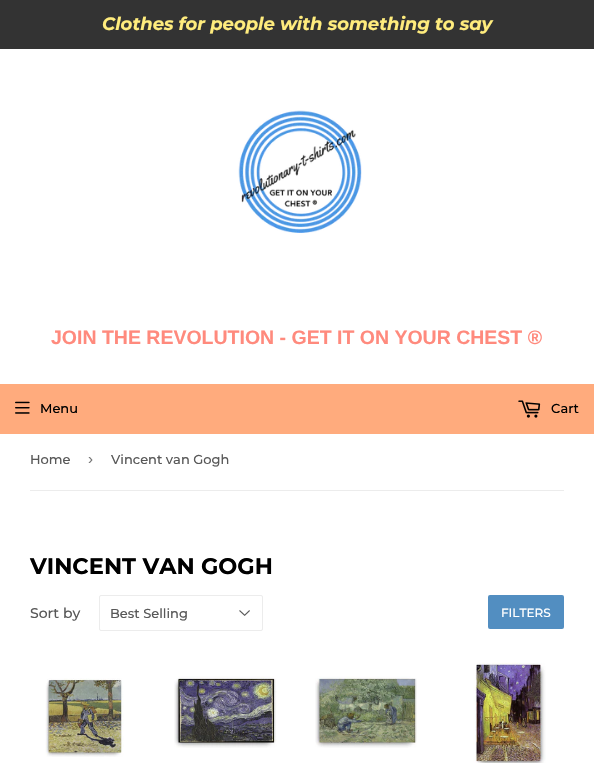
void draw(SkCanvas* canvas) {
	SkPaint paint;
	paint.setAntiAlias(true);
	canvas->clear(0xffffffff);
	paint.setColor(0xff333333);
	canvas->drawRect(SkRect::MakeXYWH(0, 0, 594, 49), paint);
	SkFont f1(fontMgr->matchFamilyStyle("Montserrat", SkFontStyle::BoldItalic()), 18);
	f1.setSubpixel(true);
	paint.setColor(0xffffec7d);
	canvas->drawString("Clothes for people with something to say", 102, 30, f1, paint);
	canvas->drawImageRect(SkImages::DeferredFromEncodedData(SkData::MakeFromFileName("img1.png")), SkRect::MakeXYWH(238, 110, 124, 123), SkSamplingOptions());
	SkFont f2(fontMgr->matchFamilyStyle("Liberation Sans", SkFontStyle::Bold()), 19.5);
	f2.setSubpixel(true);
	paint.setColor(0xffff8a7d);
	canvas->drawString("JOIN THE REVOLUTION - GET IT ON YOUR CHEST ®", 51, 344, f2, paint);
	paint.setColor(0xffffab7d);
	canvas->drawRect(SkRect::MakeXYWH(0, 384, 594, 50), paint);
	canvas->drawImageRect(SkImages::DeferredFromEncodedData(SkData::MakeFromFileName("img2.png")), SkRect::MakeXYWH(15, 401, 15, 13), SkSamplingOptions());
	SkFont f3(fontMgr->matchFamilyStyle("Montserrat", SkFontStyle(500, SkFontStyle::kNormal_Width, SkFontStyle::kUpright_Slant)), 13);
	f3.setSubpixel(true);
	paint.setColor(0xff000000);
	canvas->drawString("Menu", 40, 413, f3, paint);
	canvas->drawImageRect(SkImages::DeferredFromEncodedData(SkData::MakeFromFileName("img3.png")), SkRect::MakeXYWH(518, 400, 23, 18), SkSamplingOptions());
	canvas->drawString("Cart", 551, 413, f3, paint);
	paint.setColor(0xffececec);
	canvas->drawRect(SkRect::MakeXYWH(30, 490, 534, 1), paint);
	paint.setColor(0xff585858);
	canvas->drawString("Home", 30, 464, f3, paint);
	SkFont f4(fontMgr->matchFamilyStyle("Liberation Sans", SkFontStyle::Normal()), 15);
	f4.setSubpixel(true);
	paint.setColor(0xff767676);
	canvas->drawString("›", 88, 464, f4, paint);
	paint.setColor(0xff585858);
	canvas->drawString("Vincent van Gogh", 111, 464, f3, paint);
	SkFont f5(fontMgr->matchFamilyStyle("Montserrat", SkFontStyle::Bold()), 22.5);
	f5.setSubpixel(true);
	paint.setColor(0xff000000);
	canvas->drawString("VINCENT VAN GOGH", 30, 574, f5, paint);
	SkFont f6(fontMgr->matchFamilyStyle("Montserrat", SkFontStyle(500, SkFontStyle::kNormal_Width, SkFontStyle::kUpright_Slant)), 14);
	f6.setSubpixel(true);
	paint.setColor(0xff585858);
	canvas->drawString("Sort by", 30, 618, f6, paint);
	canvas->drawImageRect(SkImages::DeferredFromEncodedData(SkData::MakeFromFileName("img4.png")), SkRect::MakeXYWH(239, 610, 11, 6), SkSamplingOptions());
	paint.setStroke(true);
	paint.setStrokeWidth(1);
	paint.setColor(0xffececec);
	canvas->drawRoundRect(SkRect::MakeXYWH(99.5, 595.5, 163, 35), 1.5, 1.5, paint);
	paint.setStroke(false);
	paint.setColor(0xff585858);
	canvas->drawString("Best Selling", 110, 618, f3, paint);
	paint.setColor(0xff528ec1);
	canvas->drawRoundRect(SkRect::MakeXYWH(488, 595, 76, 34), 2, 2, paint);
	SkFont f7(fontMgr->matchFamilyStyle("Montserrat", SkFontStyle(500, SkFontStyle::kNormal_Width, SkFontStyle::kUpright_Slant)), 12);
	f7.setSubpixel(true);
	paint.setColor(0xffffffff);
	canvas->drawString("FILTERS", 501, 617, f7, paint);
	canvas->drawImageRect(SkImages::DeferredFromEncodedData(SkData::MakeFromFileName("img5.png")), SkRect::MakeXYWH(45, 678, 79, 79), SkSamplingOptions());
	canvas->drawImageRect(SkImages::DeferredFromEncodedData(SkData::MakeFromFileName("img6.png")), SkRect::MakeXYWH(174, 676, 103, 72), SkSamplingOptions());
	canvas->drawImageRect(SkImages::DeferredFromEncodedData(SkData::MakeFromFileName("img7.png")), SkRect::MakeXYWH(315, 676, 102, 72), SkSamplingOptions());
	canvas->drawImageRect(SkImages::DeferredFromEncodedData(SkData::MakeFromFileName("img8.png")), SkRect::MakeXYWH(473, 662, 73, 101), SkSamplingOptions());
}
